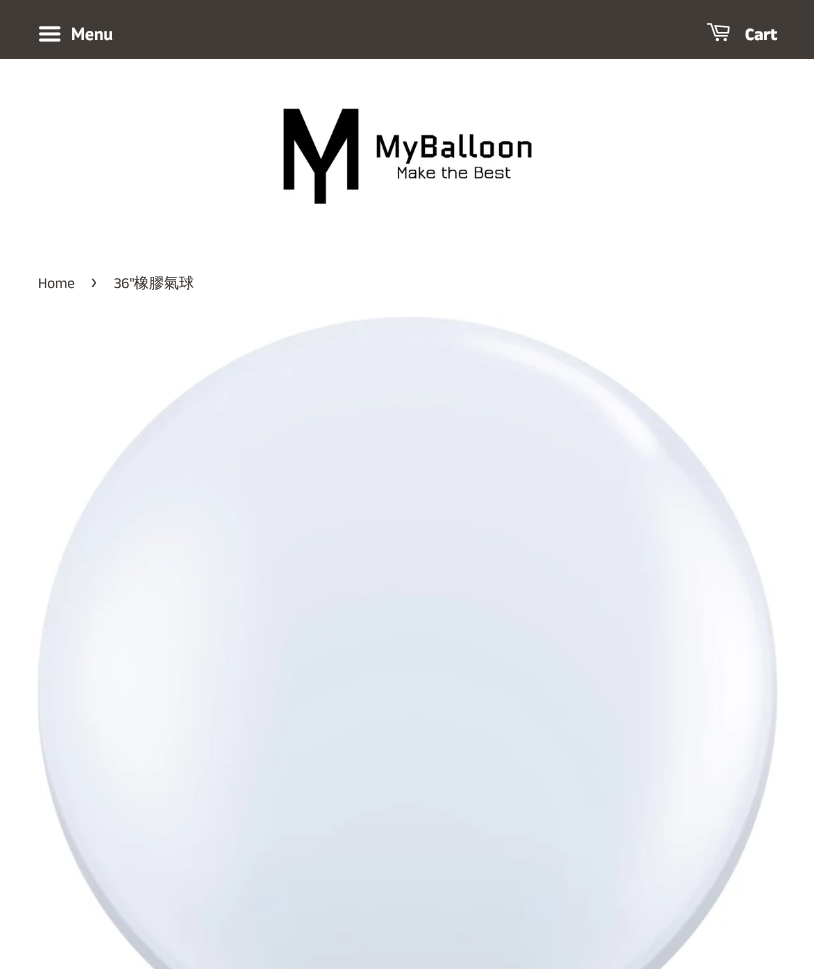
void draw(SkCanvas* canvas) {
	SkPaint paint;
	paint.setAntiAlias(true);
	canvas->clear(0xffffffff);
	paint.setColor(0xff403b37);
	canvas->drawRect(SkRect::MakeXYWH(0, 0, 814, 59), paint);
	canvas->drawImageRect(SkImages::DeferredFromEncodedData(SkData::MakeFromFileName("img1.png")), SkRect::MakeXYWH(39, 26, 22, 16), SkSamplingOptions());
	SkFont f1(fontMgr->matchFamilyStyle("PT Sans", SkFontStyle::Bold()), 17.5);
	f1.setSubpixel(true);
	paint.setColor(0xffffffff);
	canvas->drawString("Menu", 71, 40, f1, paint);
	canvas->drawImageRect(SkImages::DeferredFromEncodedData(SkData::MakeFromFileName("img2.png")), SkRect::MakeXYWH(706, 23, 24, 19), SkSamplingOptions());
	SkFont f2(fontMgr->matchFamilyStyle("Anek Tamil", SkFontStyle::Bold()), 17.5);
	f2.setSubpixel(true);
	canvas->drawString("Cart", 745, 40, f2, paint);
	canvas->drawImageRect(SkImages::DeferredFromEncodedData(SkData::MakeFromFileName("img3.png")), SkRect::MakeXYWH(283, 108, 249, 96), SkSamplingOptions());
	SkFont f3(fontMgr->matchFamilyStyle("Anek Tamil", SkFontStyle::Normal()), 15);
	f3.setSubpixel(true);
	paint.setColor(0xff403b37);
	canvas->drawString("Home", 38, 288, f3, paint);
	SkFont f4(fontMgr->matchFamilyStyle("Anek Tamil", SkFontStyle::Normal()), 21);
	f4.setSubpixel(true);
	canvas->drawString("›", 91, 288, f4, paint);
	canvas->drawString("36\"", 114, 288, f3, paint);
	SkFont f5(fontMgr->matchFamilyStyle("WenQuanYi Zen Hei", SkFontStyle(500, SkFontStyle::kNormal_Width, SkFontStyle::kUpright_Slant)), 15);
	f5.setSubpixel(true);
	canvas->drawString("橡膠氣球", 134, 288, f5, paint);
	canvas->drawImageRect(SkImages::DeferredFromEncodedData(SkData::MakeFromFileName("img4.png")), SkRect::MakeXYWH(37, 316, 741, 653), SkSamplingOptions());
}
